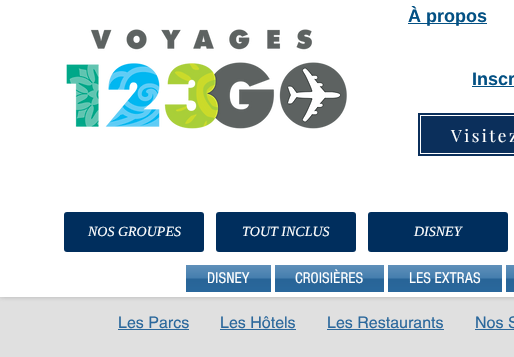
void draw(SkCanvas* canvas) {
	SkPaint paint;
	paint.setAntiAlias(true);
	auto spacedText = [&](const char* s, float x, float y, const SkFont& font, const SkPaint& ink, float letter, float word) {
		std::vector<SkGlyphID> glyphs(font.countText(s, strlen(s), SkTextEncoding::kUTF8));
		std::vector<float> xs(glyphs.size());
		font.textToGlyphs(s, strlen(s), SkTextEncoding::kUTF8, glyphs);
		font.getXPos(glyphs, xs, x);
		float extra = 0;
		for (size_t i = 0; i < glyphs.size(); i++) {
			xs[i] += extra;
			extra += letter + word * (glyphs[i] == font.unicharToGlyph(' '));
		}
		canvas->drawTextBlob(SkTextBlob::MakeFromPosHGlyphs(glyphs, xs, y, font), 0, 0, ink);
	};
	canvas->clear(0xffffffff);
	paint.setColor(0xffe0e0e0);
	canvas->drawRect(SkRect::MakeXYWH(0, 297, 514, 60), paint);
	canvas->save();
	canvas->clipRect(SkRect::MakeXYWH(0, 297, 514, 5));
	paint.setColor(0xb3a1a1a1);
	paint.setMaskFilter(SkMaskFilter::MakeBlur(kNormal_SkBlurStyle, 2.5));
	canvas->drawRect(SkRect::MakeXYWH(0, 0, 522, 297), paint);
	paint.setMaskFilter(nullptr);
	canvas->restore();
	paint.setColor(0xff045184);
	canvas->drawRect(SkRect::MakeXYWH(408, 23, 79, 1), paint);
	SkFont f1(fontMgr->matchFamilyStyle("Liberation Sans", SkFontStyle::Bold()), 18);
	f1.setSubpixel(true);
	canvas->drawString("À propos", 408, 22, f1, paint);
	canvas->drawImageRect(SkImages::DeferredFromEncodedData(SkData::MakeFromFileName("img1.png")), SkRect::MakeXYWH(66, 29, 281, 100), SkSamplingOptions());
	canvas->drawString("Inscr", 472, 85, f1, paint);
	canvas->drawRect(SkRect::MakeXYWH(472, 86, 42, 1), paint);
	paint.setColor(0xff0b2f5b);
	canvas->drawRect(SkRect::MakeXYWH(418, 113, 96, 43), paint);
	paint.setStroke(true);
	paint.setStrokeWidth(1);
	paint.setColor(0xffffffff);
	canvas->drawRect(SkRect::MakeXYWH(420.5, 115.5, 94, 38), paint);
	SkFont f2(fontMgr->matchFamilyStyle("Playfair Display", SkFontStyle::Normal()), 17);
	f2.setSubpixel(true);
	paint.setStroke(false);
	spacedText("Visitez", 451, 142, f2, paint, 2.5, 0);
	paint.setColor(0xff002e5d);
	canvas->drawRoundRect(SkRect::MakeXYWH(64, 212, 140, 40), 3, 3, paint);
	SkFont f3(fontMgr->matchFamilyStyle("Liberation Serif", SkFontStyle::Italic()), 14);
	f3.setSubpixel(true);
	paint.setColor(0xffffffff);
	canvas->drawString("NOS GROUPES", 88, 236, f3, paint);
	paint.setColor(0xff002e5d);
	canvas->drawRoundRect(SkRect::MakeXYWH(216, 212, 140, 40), 3, 3, paint);
	paint.setColor(0xffffffff);
	canvas->drawString("TOUT INCLUS", 242, 236, f3, paint);
	paint.setColor(0xff002e5d);
	canvas->drawRoundRect(SkRect::MakeXYWH(368, 212, 140, 40), 3, 3, paint);
	paint.setColor(0xffffffff);
	canvas->drawString("DISNEY", 414, 236, f3, paint);
	paint.setColor(0xff2b6ca3);
	canvas->drawRect(SkRect::MakeXYWH(186, 265, 85, 27), paint);
	canvas->drawImageRect(SkImages::DeferredFromEncodedData(SkData::MakeFromFileName("img2.png")), SkRect::MakeXYWH(186, 265, 85, 27), SkSamplingOptions());
	SkFont f4(fontMgr->matchFamilyStyle("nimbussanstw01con", SkFontStyle::Normal()), 16);
	f4.setSubpixel(true);
	paint.setColor(0xffffffff);
	canvas->drawString("DISNEY", 207, 283, f4, paint);
	paint.setColor(0xff2b6ca3);
	canvas->drawRect(SkRect::MakeXYWH(275, 265, 109, 27), paint);
	canvas->drawImageRect(SkImages::DeferredFromEncodedData(SkData::MakeFromFileName("img3.png")), SkRect::MakeXYWH(275, 265, 109, 27), SkSamplingOptions());
	paint.setColor(0xffffffff);
	canvas->drawString("CROISIÈRES", 295, 283, f4, paint);
	paint.setColor(0xff2b6ca3);
	canvas->drawRect(SkRect::MakeXYWH(388, 265, 114, 27), paint);
	canvas->drawImageRect(SkImages::DeferredFromEncodedData(SkData::MakeFromFileName("img4.png")), SkRect::MakeXYWH(388, 265, 114, 27), SkSamplingOptions());
	paint.setColor(0xffffffff);
	canvas->drawString("LES EXTRAS", 409, 283, f4, paint);
	paint.setColor(0xff2b6ca3);
	canvas->drawRect(SkRect::MakeXYWH(506, 265, 8, 27), paint);
	canvas->drawImageRect(SkImages::DeferredFromEncodedData(SkData::MakeFromFileName("img5.png")), SkRect::MakeXYWH(506, 265, 8, 27), SkSamplingOptions());
	SkFont f5(fontMgr->matchFamilyStyle("helvetica", SkFontStyle::Normal()), 16);
	f5.setSubpixel(true);
	paint.setColor(0xff2b689c);
	canvas->drawString("Les Parcs", 118, 328, f5, paint);
	canvas->drawRect(SkRect::MakeXYWH(118, 329, 71, 1), paint);
	canvas->drawString("Les Hôtels", 220, 328, f5, paint);
	canvas->drawRect(SkRect::MakeXYWH(220, 329, 76, 1), paint);
	canvas->drawString("Les Restaurants", 327, 328, f5, paint);
	canvas->drawRect(SkRect::MakeXYWH(327, 329, 117, 1), paint);
	canvas->drawString("Nos S", 475, 328, f5, paint);
	canvas->drawRect(SkRect::MakeXYWH(475, 329, 39, 1), paint);
}
